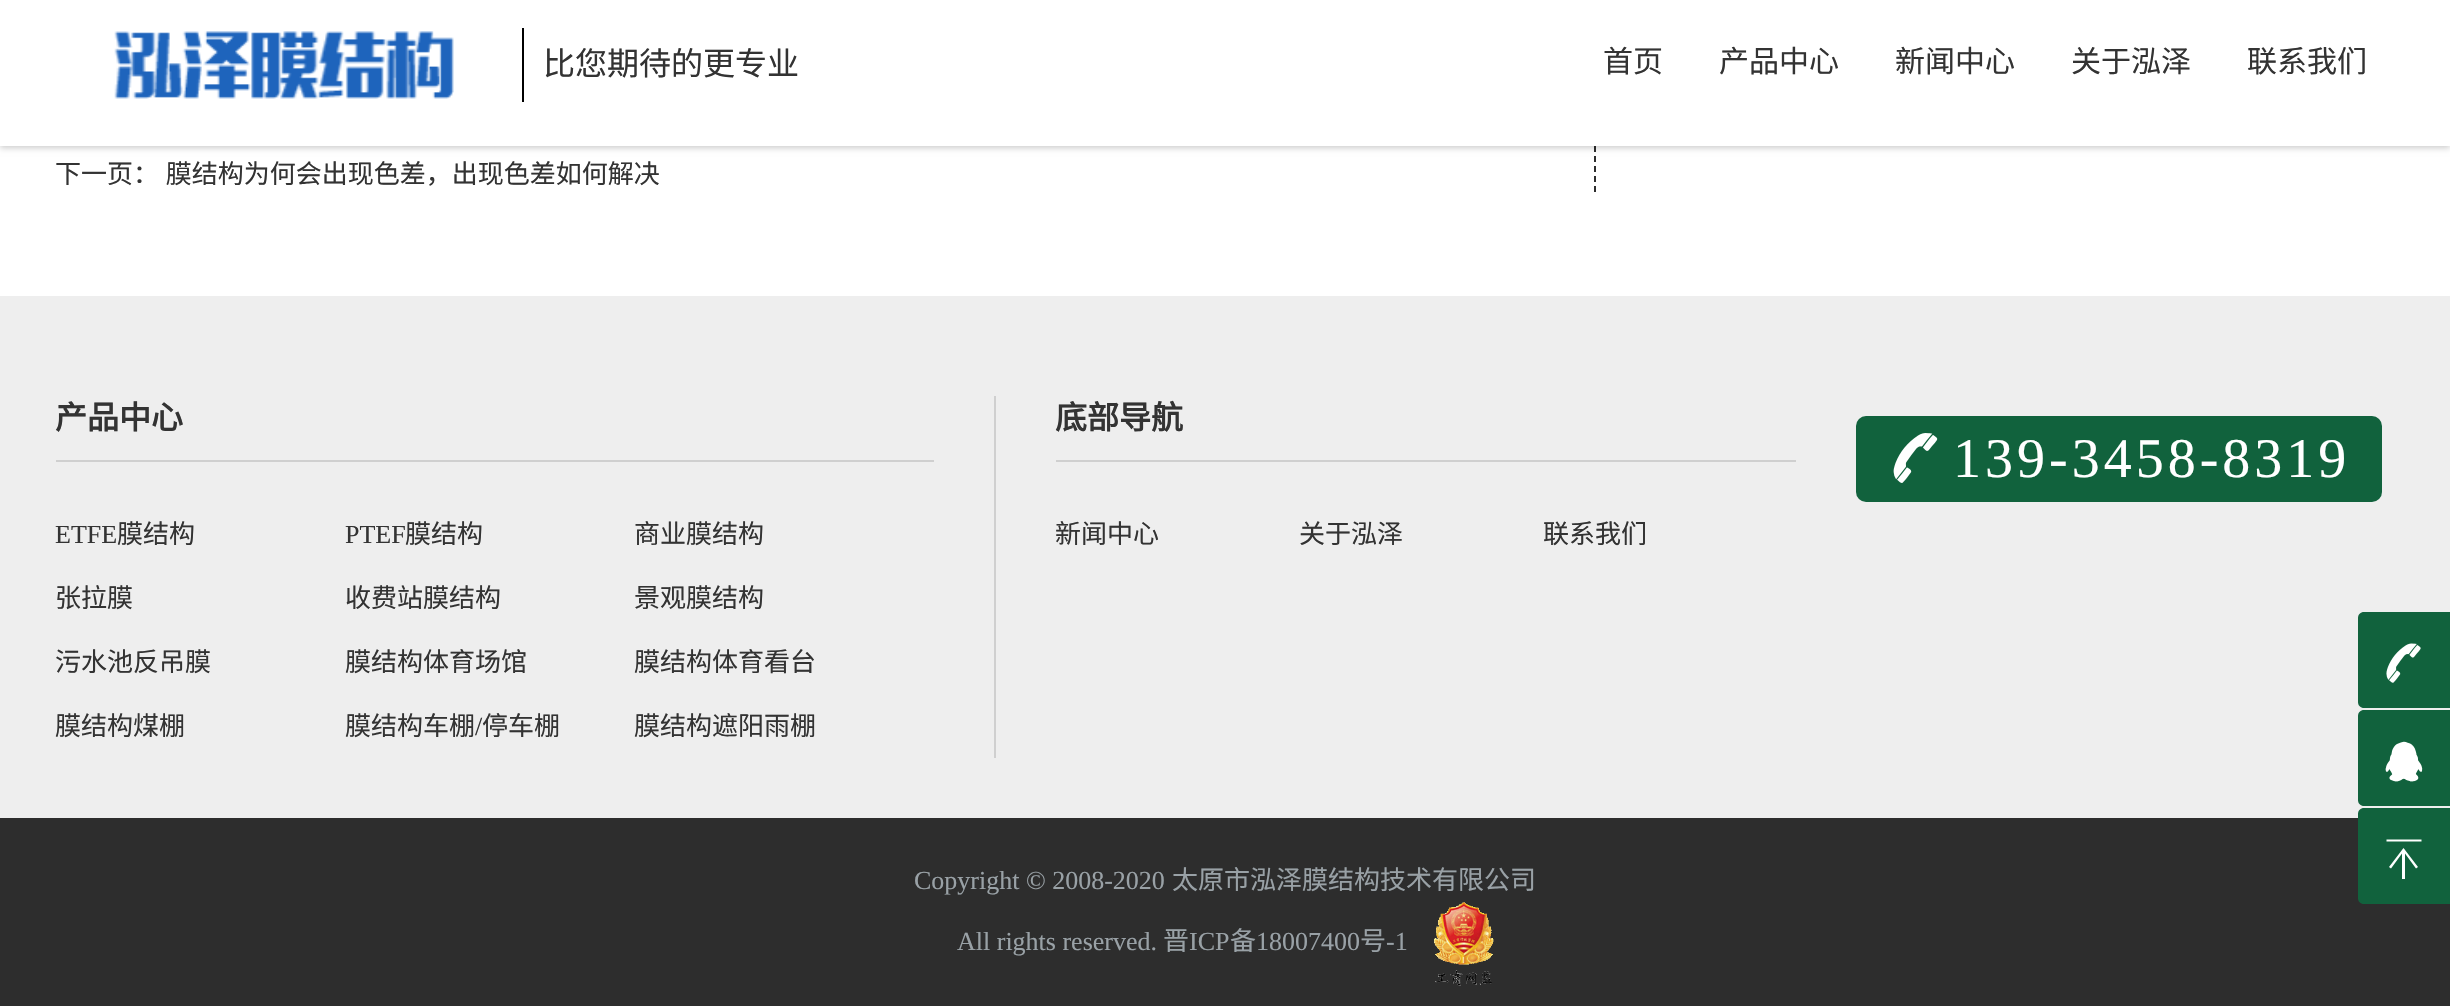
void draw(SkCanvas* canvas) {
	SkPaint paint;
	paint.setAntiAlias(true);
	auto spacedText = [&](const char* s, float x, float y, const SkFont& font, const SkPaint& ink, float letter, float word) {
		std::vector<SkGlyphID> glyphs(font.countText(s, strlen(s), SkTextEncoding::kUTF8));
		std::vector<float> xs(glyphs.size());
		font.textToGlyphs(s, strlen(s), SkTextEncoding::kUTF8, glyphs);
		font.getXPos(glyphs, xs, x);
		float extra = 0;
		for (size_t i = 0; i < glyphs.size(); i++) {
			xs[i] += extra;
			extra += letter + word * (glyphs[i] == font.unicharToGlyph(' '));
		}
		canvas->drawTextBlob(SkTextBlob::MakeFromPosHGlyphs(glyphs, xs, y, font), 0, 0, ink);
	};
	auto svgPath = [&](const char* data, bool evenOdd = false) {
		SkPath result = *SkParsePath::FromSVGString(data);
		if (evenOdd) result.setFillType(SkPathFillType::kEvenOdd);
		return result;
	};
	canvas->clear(0xffffffff);
	paint.setStroke(true);
	paint.setStrokeWidth(2);
	paint.setColor(0xff2d2d2d);
	paint.setPathEffect(SkDashPathEffect::Make({{6, 4}}, 0));
	canvas->drawPath(svgPath("M1595-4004V196"), paint);
	paint.setPathEffect(nullptr);
	paint.setStroke(false);
	paint.setColor(0x33000000);
	paint.setMaskFilter(SkMaskFilter::MakeBlur(kNormal_SkBlurStyle, 3));
	canvas->drawRect(SkRect::MakeXYWH(0, 2, 2450, 146), paint);
	paint.setMaskFilter(nullptr);
	paint.setColor(0xffffffff);
	canvas->drawRect(SkRect::MakeXYWH(0, 0, 2450, 146), paint);
	canvas->drawImageRect(SkImages::DeferredFromEncodedData(SkData::MakeFromFileName("img1.png")), SkRect::MakeXYWH(114, 31, 340, 68), SkSamplingOptions());
	SkFont f1(fontMgr->matchFamilyStyle("Noto Sans CJK SC", SkFontStyle::Normal()), 32);
	f1.setSubpixel(true);
	paint.setColor(0xff333333);
	canvas->drawString("比您期待的更专业", 543, 75, f1, paint);
	paint.setColor(0xff000000);
	canvas->drawRect(SkRect::MakeXYWH(522, 28, 2, 74), paint);
	SkFont f2(fontMgr->matchFamilyStyle("Noto Sans CJK SC", SkFontStyle::Normal()), 30);
	f2.setSubpixel(true);
	paint.setColor(0xff333333);
	canvas->drawString("首页", 1603, 72, f2, paint);
	canvas->drawString("产品中心", 1719, 72, f2, paint);
	canvas->drawString("新闻中心", 1895, 72, f2, paint);
	canvas->drawString("关于泓泽", 2071, 72, f2, paint);
	canvas->drawString("联系我们", 2247, 72, f2, paint);
	SkFont f3(fontMgr->matchFamilyStyle("Noto Sans CJK SC", SkFontStyle::Normal()), 26);
	f3.setSubpixel(true);
	spacedText("下一页： 膜结构为何会出现色差，出现色差如何解决", 55, 183, f3, paint, 0, 1);
	paint.setColor(0xffeeeeee);
	canvas->drawRect(SkRect::MakeXYWH(0, 296, 2450, 522), paint);
	paint.setColor(0xffcfcfcf);
	canvas->drawRect(SkRect::MakeXYWH(994, 396, 2, 362), paint);
	canvas->drawRect(SkRect::MakeXYWH(56, 460, 878, 2), paint);
	SkFont f4(fontMgr->matchFamilyStyle("Noto Sans CJK SC", SkFontStyle::Bold()), 32);
	f4.setSubpixel(true);
	paint.setColor(0xff333333);
	canvas->drawString("产品中心", 55, 429, f4, paint);
	SkFont f5(fontMgr->matchFamilyStyle("Liberation Serif", SkFontStyle::Normal()), 26);
	f5.setSubpixel(true);
	canvas->drawString("ETFE", 55, 543, f5, paint);
	canvas->drawString("膜结构", 117, 543, f3, paint);
	canvas->drawString("PTEF", 345, 543, f5, paint);
	canvas->drawString("膜结构", 405, 543, f3, paint);
	canvas->drawString("商业膜结构", 634, 543, f3, paint);
	canvas->drawString("张拉膜", 55, 607, f3, paint);
	canvas->drawString("收费站膜结构", 345, 607, f3, paint);
	canvas->drawString("景观膜结构", 634, 607, f3, paint);
	canvas->drawString("污水池反吊膜", 55, 671, f3, paint);
	canvas->drawString("膜结构体育场馆", 345, 671, f3, paint);
	canvas->drawString("膜结构体育看台", 634, 671, f3, paint);
	canvas->drawString("膜结构煤棚", 55, 735, f3, paint);
	canvas->drawString("膜结构车棚", 345, 735, f3, paint);
	canvas->drawString("/", 475, 735, f5, paint);
	canvas->drawString("停车棚", 482, 735, f3, paint);
	canvas->drawString("膜结构遮阳雨棚", 634, 735, f3, paint);
	paint.setColor(0xffcfcfcf);
	canvas->drawRect(SkRect::MakeXYWH(1056, 460, 740, 2), paint);
	paint.setColor(0xff333333);
	canvas->drawString("底部导航", 1055, 429, f4, paint);
	canvas->drawString("新闻中心", 1055, 543, f3, paint);
	canvas->drawString("关于泓泽", 1299, 543, f3, paint);
	canvas->drawString("联系我们", 1543, 543, f3, paint);
	paint.setColor(0xff11623d);
	canvas->drawRoundRect(SkRect::MakeXYWH(1856, 416, 526, 86), 10, 10, paint);
	canvas->drawImageRect(SkImages::DeferredFromEncodedData(SkData::MakeFromFileName("img2.png")), SkRect::MakeXYWH(1893, 433, 45, 50), SkSamplingOptions());
	SkFont f6(fontMgr->matchFamilyStyle("Liberation Serif", SkFontStyle::Normal()), 56);
	f6.setSubpixel(true);
	paint.setColor(0xffffffff);
	spacedText("139-3458-8319", 1953, 477, f6, paint, 4, 0);
	paint.setColor(0xff11623d);
	canvas->drawPath(svgPath("M2364 612H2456V708H2364C2360.5 708 2358 705.5 2358 702V618C2358 614.5 2360.5 612 2364 612Z"), paint);
	canvas->drawImageRect(SkImages::DeferredFromEncodedData(SkData::MakeFromFileName("img3.png")), SkRect::MakeXYWH(2386, 643, 35, 40), SkSamplingOptions());
	canvas->drawPath(svgPath("M2364 710H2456V806H2364C2360.5 806 2358 803.5 2358 800V716C2358 712.5 2360.5 710 2364 710Z"), paint);
	canvas->drawImageRect(SkImages::DeferredFromEncodedData(SkData::MakeFromFileName("img4.png")), SkRect::MakeXYWH(2385, 741, 38, 41), SkSamplingOptions());
	paint.setColor(0xff2d2d2d);
	canvas->drawRect(SkRect::MakeXYWH(0, 818, 2450, 188), paint);
	paint.setColor(0xff11623d);
	canvas->drawPath(svgPath("M2364 808H2450V904H2364C2360.5 904 2358 901.5 2358 898V814C2358 810.5 2360.5 808 2364 808Z"), paint);
	paint.setColor(0xffffffff);
	canvas->drawPath(svgPath("M2421.5 841.5H2386.5V839.5H2421.5ZM2403.5 848L2418 867L2416 868.5L2405 853.5V879H2402V853.5L2391 868.5L2389 867Z"), paint);
	paint.setColor(0xff99a1a6);
	canvas->drawString("Copyright © 2008-2020", 914, 889, f5, paint);
	canvas->drawString("太原市泓泽膜结构技术有限公司", 1172, 889, f3, paint);
	canvas->drawString("All rights reserved.", 957, 950, f5, paint);
	canvas->drawString("晋", 1163, 950, f3, paint);
	canvas->drawString("ICP", 1189, 950, f5, paint);
	canvas->drawString("备", 1230, 950, f3, paint);
	canvas->drawString("18007400", 1256, 950, f5, paint);
	canvas->drawString("号", 1360, 950, f3, paint);
	canvas->drawString("-1", 1386, 950, f5, paint);
	canvas->drawImageRect(SkImages::DeferredFromEncodedData(SkData::MakeFromFileName("img5.png")), SkRect::MakeXYWH(1434, 902, 60, 84), SkSamplingOptions());
}
